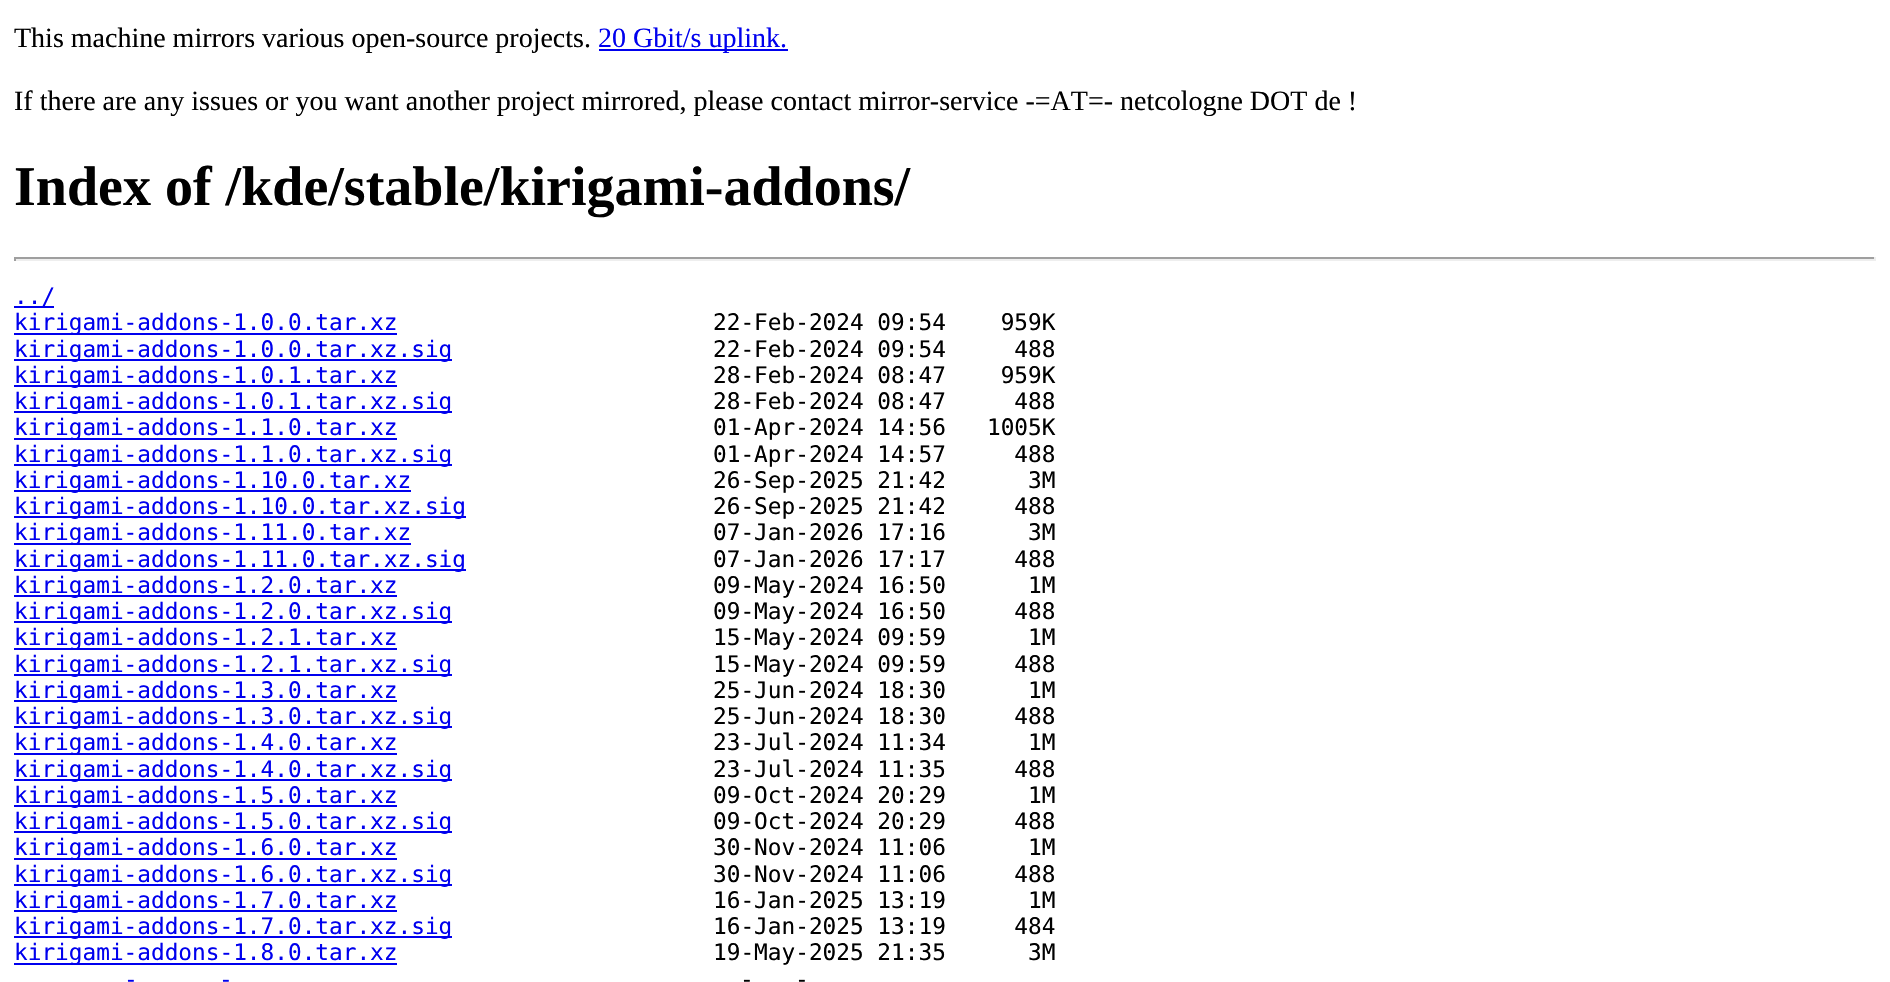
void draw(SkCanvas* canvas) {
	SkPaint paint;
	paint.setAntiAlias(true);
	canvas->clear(0xffffffff);
	SkFont f1(fontMgr->matchFamilyStyle("Liberation Serif", SkFontStyle::Normal()), 28);
	f1.setSubpixel(true);
	paint.setColor(0xff000000);
	canvas->drawString("This machine mirrors various open-source projects.", 14, 47, f1, paint);
	paint.setColor(0xff0000ee);
	canvas->drawRect(SkRect::MakeXYWH(599, 49, 189, 2), paint);
	canvas->drawString("20 Gbit/s uplink.", 598, 47, f1, paint);
	paint.setColor(0xff000000);
	canvas->drawString("If there are any issues or you want another project mirrored, please contact mirror-service -=AT=- netcologne DOT de !", 14, 110, f1, paint);
	SkFont f2(fontMgr->matchFamilyStyle("Liberation Serif", SkFontStyle::Bold()), 56);
	f2.setSubpixel(true);
	canvas->drawString("Index of /kde/stable/kirigami-addons/", 14, 205, f2, paint);
	paint.setColor(0xff9f9f9f);
	canvas->drawRect(SkRect::MakeXYWH(14, 257, 1862, 2), paint);
	paint.setColor(0xffeeeeee);
	canvas->drawRect(SkRect::MakeXYWH(1874, 257, 2, 4), paint);
	canvas->drawRect(SkRect::MakeXYWH(14, 259, 1862, 2), paint);
	paint.setColor(0xff9f9f9f);
	canvas->drawRect(SkRect::MakeXYWH(14, 257, 2, 4), paint);
	paint.setColor(0xff0000ee);
	canvas->drawRect(SkRect::MakeXYWH(14, 306, 40, 2), paint);
	SkFont f3(fontMgr->matchFamilyStyle("DejaVu Sans Mono", SkFontStyle::Normal()), 22.75);
	f3.setSubpixel(true);
	canvas->drawString("../", 14, 304, f3, paint);
	canvas->drawRect(SkRect::MakeXYWH(14, 333, 383, 2), paint);
	canvas->drawString("kirigami-addons-1.0.0.tar.xz", 14, 330, f3, paint);
	paint.setColor(0xff000000);
	canvas->drawString("22-Feb-2024 09:54    959K", 713, 330, f3, paint);
	paint.setColor(0xff0000ee);
	canvas->drawRect(SkRect::MakeXYWH(14, 359, 438, 2), paint);
	canvas->drawString("kirigami-addons-1.0.0.tar.xz.sig", 14, 357, f3, paint);
	paint.setColor(0xff000000);
	canvas->drawString("22-Feb-2024 09:54     488", 713, 357, f3, paint);
	paint.setColor(0xff0000ee);
	canvas->drawRect(SkRect::MakeXYWH(14, 385, 383, 2), paint);
	canvas->drawString("kirigami-addons-1.0.1.tar.xz", 14, 383, f3, paint);
	paint.setColor(0xff000000);
	canvas->drawString("28-Feb-2024 08:47    959K", 713, 383, f3, paint);
	paint.setColor(0xff0000ee);
	canvas->drawRect(SkRect::MakeXYWH(14, 411, 438, 2), paint);
	canvas->drawString("kirigami-addons-1.0.1.tar.xz.sig", 14, 409, f3, paint);
	paint.setColor(0xff000000);
	canvas->drawString("28-Feb-2024 08:47     488", 713, 409, f3, paint);
	paint.setColor(0xff0000ee);
	canvas->drawRect(SkRect::MakeXYWH(14, 438, 383, 2), paint);
	canvas->drawString("kirigami-addons-1.1.0.tar.xz", 14, 435, f3, paint);
	paint.setColor(0xff000000);
	canvas->drawString("01-Apr-2024 14:56   1005K", 713, 435, f3, paint);
	paint.setColor(0xff0000ee);
	canvas->drawRect(SkRect::MakeXYWH(14, 464, 438, 2), paint);
	canvas->drawString("kirigami-addons-1.1.0.tar.xz.sig", 14, 462, f3, paint);
	paint.setColor(0xff000000);
	canvas->drawString("01-Apr-2024 14:57     488", 713, 462, f3, paint);
	paint.setColor(0xff0000ee);
	canvas->drawRect(SkRect::MakeXYWH(14, 490, 397, 2), paint);
	canvas->drawString("kirigami-addons-1.10.0.tar.xz", 14, 488, f3, paint);
	paint.setColor(0xff000000);
	canvas->drawString("26-Sep-2025 21:42      3M", 713, 488, f3, paint);
	paint.setColor(0xff0000ee);
	canvas->drawRect(SkRect::MakeXYWH(14, 516, 452, 2), paint);
	canvas->drawString("kirigami-addons-1.10.0.tar.xz.sig", 14, 514, f3, paint);
	paint.setColor(0xff000000);
	canvas->drawString("26-Sep-2025 21:42     488", 713, 514, f3, paint);
	paint.setColor(0xff0000ee);
	canvas->drawRect(SkRect::MakeXYWH(14, 543, 397, 2), paint);
	canvas->drawString("kirigami-addons-1.11.0.tar.xz", 14, 540, f3, paint);
	paint.setColor(0xff000000);
	canvas->drawString("07-Jan-2026 17:16      3M", 713, 540, f3, paint);
	paint.setColor(0xff0000ee);
	canvas->drawRect(SkRect::MakeXYWH(14, 569, 452, 2), paint);
	canvas->drawString("kirigami-addons-1.11.0.tar.xz.sig", 14, 567, f3, paint);
	paint.setColor(0xff000000);
	canvas->drawString("07-Jan-2026 17:17     488", 713, 567, f3, paint);
	paint.setColor(0xff0000ee);
	canvas->drawRect(SkRect::MakeXYWH(14, 595, 383, 2), paint);
	canvas->drawString("kirigami-addons-1.2.0.tar.xz", 14, 593, f3, paint);
	paint.setColor(0xff000000);
	canvas->drawString("09-May-2024 16:50      1M", 713, 593, f3, paint);
	paint.setColor(0xff0000ee);
	canvas->drawRect(SkRect::MakeXYWH(14, 621, 438, 2), paint);
	canvas->drawString("kirigami-addons-1.2.0.tar.xz.sig", 14, 619, f3, paint);
	paint.setColor(0xff000000);
	canvas->drawString("09-May-2024 16:50     488", 713, 619, f3, paint);
	paint.setColor(0xff0000ee);
	canvas->drawRect(SkRect::MakeXYWH(14, 648, 383, 2), paint);
	canvas->drawString("kirigami-addons-1.2.1.tar.xz", 14, 645, f3, paint);
	paint.setColor(0xff000000);
	canvas->drawString("15-May-2024 09:59      1M", 713, 645, f3, paint);
	paint.setColor(0xff0000ee);
	canvas->drawRect(SkRect::MakeXYWH(14, 674, 438, 2), paint);
	canvas->drawString("kirigami-addons-1.2.1.tar.xz.sig", 14, 672, f3, paint);
	paint.setColor(0xff000000);
	canvas->drawString("15-May-2024 09:59     488", 713, 672, f3, paint);
	paint.setColor(0xff0000ee);
	canvas->drawRect(SkRect::MakeXYWH(14, 700, 383, 2), paint);
	canvas->drawString("kirigami-addons-1.3.0.tar.xz", 14, 698, f3, paint);
	paint.setColor(0xff000000);
	canvas->drawString("25-Jun-2024 18:30      1M", 713, 698, f3, paint);
	paint.setColor(0xff0000ee);
	canvas->drawRect(SkRect::MakeXYWH(14, 726, 438, 2), paint);
	canvas->drawString("kirigami-addons-1.3.0.tar.xz.sig", 14, 724, f3, paint);
	paint.setColor(0xff000000);
	canvas->drawString("25-Jun-2024 18:30     488", 713, 724, f3, paint);
	paint.setColor(0xff0000ee);
	canvas->drawRect(SkRect::MakeXYWH(14, 753, 383, 2), paint);
	canvas->drawString("kirigami-addons-1.4.0.tar.xz", 14, 750, f3, paint);
	paint.setColor(0xff000000);
	canvas->drawString("23-Jul-2024 11:34      1M", 713, 750, f3, paint);
	paint.setColor(0xff0000ee);
	canvas->drawRect(SkRect::MakeXYWH(14, 779, 438, 2), paint);
	canvas->drawString("kirigami-addons-1.4.0.tar.xz.sig", 14, 777, f3, paint);
	paint.setColor(0xff000000);
	canvas->drawString("23-Jul-2024 11:35     488", 713, 777, f3, paint);
	paint.setColor(0xff0000ee);
	canvas->drawRect(SkRect::MakeXYWH(14, 805, 383, 2), paint);
	canvas->drawString("kirigami-addons-1.5.0.tar.xz", 14, 803, f3, paint);
	paint.setColor(0xff000000);
	canvas->drawString("09-Oct-2024 20:29      1M", 713, 803, f3, paint);
	paint.setColor(0xff0000ee);
	canvas->drawRect(SkRect::MakeXYWH(14, 831, 438, 2), paint);
	canvas->drawString("kirigami-addons-1.5.0.tar.xz.sig", 14, 829, f3, paint);
	paint.setColor(0xff000000);
	canvas->drawString("09-Oct-2024 20:29     488", 713, 829, f3, paint);
	paint.setColor(0xff0000ee);
	canvas->drawRect(SkRect::MakeXYWH(14, 858, 383, 2), paint);
	canvas->drawString("kirigami-addons-1.6.0.tar.xz", 14, 855, f3, paint);
	paint.setColor(0xff000000);
	canvas->drawString("30-Nov-2024 11:06      1M", 713, 855, f3, paint);
	paint.setColor(0xff0000ee);
	canvas->drawRect(SkRect::MakeXYWH(14, 884, 438, 2), paint);
	canvas->drawString("kirigami-addons-1.6.0.tar.xz.sig", 14, 882, f3, paint);
	paint.setColor(0xff000000);
	canvas->drawString("30-Nov-2024 11:06     488", 713, 882, f3, paint);
	paint.setColor(0xff0000ee);
	canvas->drawRect(SkRect::MakeXYWH(14, 910, 383, 2), paint);
	canvas->drawString("kirigami-addons-1.7.0.tar.xz", 14, 908, f3, paint);
	paint.setColor(0xff000000);
	canvas->drawString("16-Jan-2025 13:19      1M", 713, 908, f3, paint);
	paint.setColor(0xff0000ee);
	canvas->drawRect(SkRect::MakeXYWH(14, 936, 438, 2), paint);
	canvas->drawString("kirigami-addons-1.7.0.tar.xz.sig", 14, 934, f3, paint);
	paint.setColor(0xff000000);
	canvas->drawString("16-Jan-2025 13:19     484", 713, 934, f3, paint);
	paint.setColor(0xff0000ee);
	canvas->drawRect(SkRect::MakeXYWH(14, 963, 383, 2), paint);
	canvas->drawString("kirigami-addons-1.8.0.tar.xz", 14, 960, f3, paint);
	paint.setColor(0xff000000);
	canvas->drawString("19-May-2025 21:35      3M", 713, 960, f3, paint);
	paint.setColor(0xff0000ee);
	canvas->drawString("-", 124, 987, f3, paint);
	canvas->drawString("-", 219, 987, f3, paint);
	paint.setColor(0xff000000);
	canvas->drawString("-", 740, 987, f3, paint);
	canvas->drawString("-", 795, 987, f3, paint);
}
